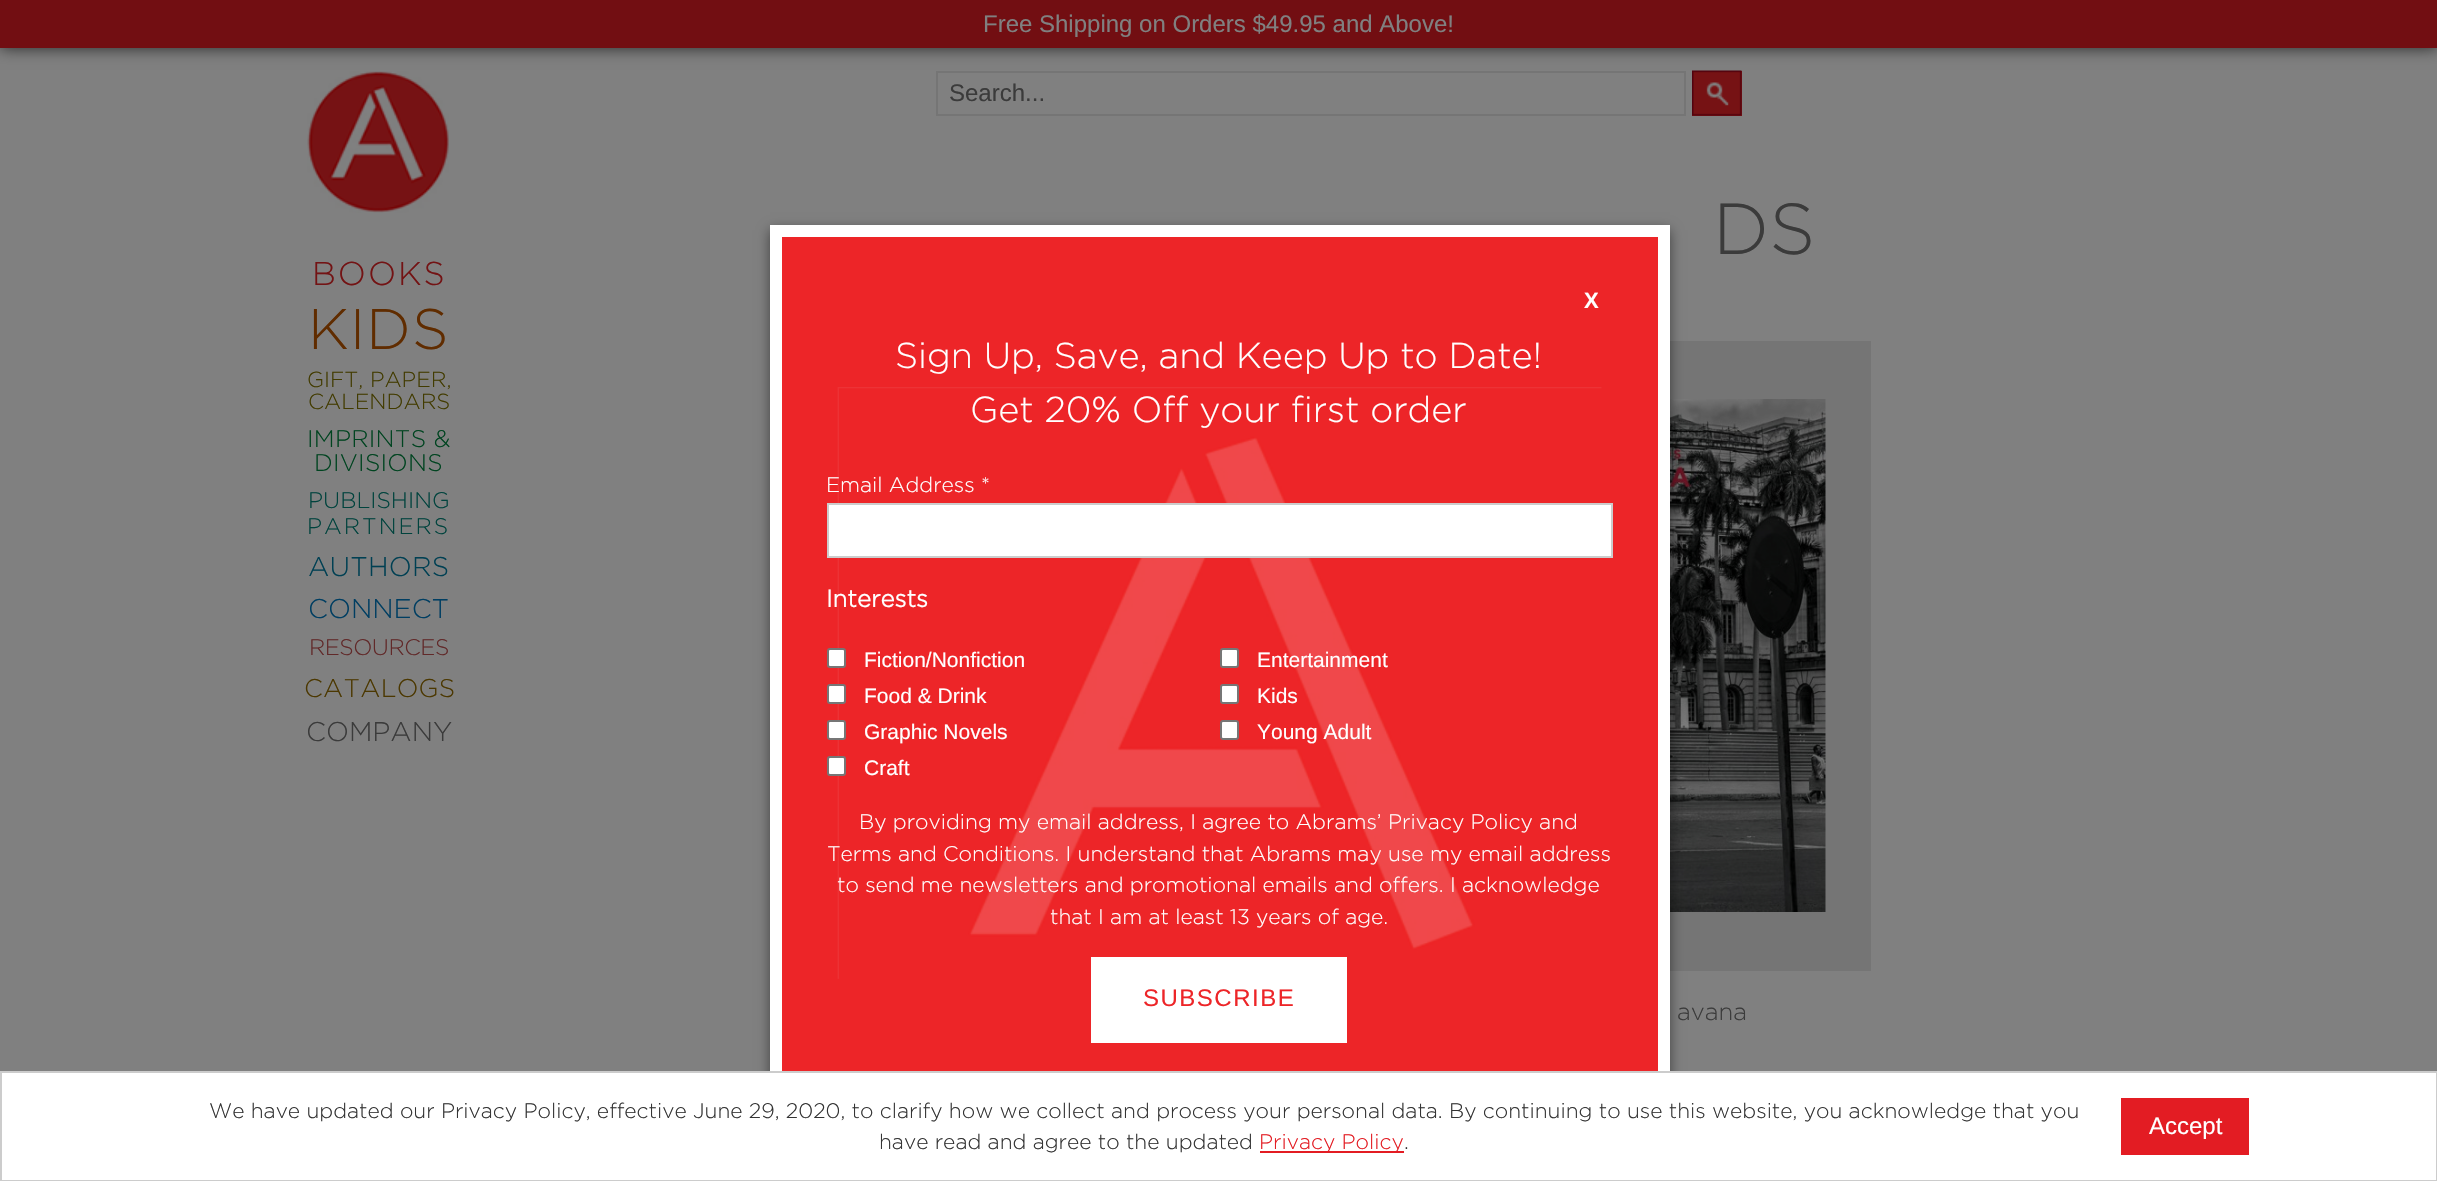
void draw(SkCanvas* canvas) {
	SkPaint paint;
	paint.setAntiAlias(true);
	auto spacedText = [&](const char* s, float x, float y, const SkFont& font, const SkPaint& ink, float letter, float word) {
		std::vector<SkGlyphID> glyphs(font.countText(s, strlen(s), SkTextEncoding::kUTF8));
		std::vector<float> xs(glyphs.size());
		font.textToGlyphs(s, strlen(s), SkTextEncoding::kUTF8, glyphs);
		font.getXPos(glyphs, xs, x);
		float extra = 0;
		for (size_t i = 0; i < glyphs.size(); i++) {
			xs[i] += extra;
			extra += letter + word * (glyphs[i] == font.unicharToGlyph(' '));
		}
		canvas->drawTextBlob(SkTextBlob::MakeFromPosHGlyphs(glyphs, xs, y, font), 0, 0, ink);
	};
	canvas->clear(0xff808080);
	canvas->drawImageRect(SkImages::DeferredFromEncodedData(SkData::MakeFromFileName("img1.png")), SkRect::MakeXYWH(307, 71, 142, 142), SkSamplingOptions());
	paint.setStroke(true);
	paint.setStrokeWidth(2);
	paint.setColor(0xff757575);
	canvas->drawRect(SkRect::MakeXYWH(937, 72, 748, 43), paint);
	paint.setStroke(false);
	paint.setColor(0xff771314);
	canvas->drawRect(SkRect::MakeXYWH(1692, 71, 50, 45), paint);
	canvas->drawImageRect(SkImages::DeferredFromEncodedData(SkData::MakeFromFileName("img2.png")), SkRect::MakeXYWH(1692, 70, 50, 46), SkSamplingOptions());
	paint.setColor(0xb3000000);
	paint.setMaskFilter(SkMaskFilter::MakeBlur(kNormal_SkBlurStyle, 7.5));
	canvas->drawRect(SkRect::MakeXYWH(0, 0, 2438, 48), paint);
	paint.setMaskFilter(nullptr);
	paint.setColor(0xff720e12);
	canvas->drawRect(SkRect::MakeXYWH(0, 0, 2437, 48), paint);
	SkFont f1(fontMgr->matchFamilyStyle("Liberation Sans", SkFontStyle::Normal()), 24);
	f1.setSubpixel(true);
	paint.setColor(0xff808080);
	canvas->drawString("Free Shipping on Orders $49.95 and Above!", 983, 32, f1, paint);
	SkFont f2(fontMgr->matchFamilyStyle("Gotham", SkFontStyle(300, SkFontStyle::kNormal_Width, SkFontStyle::kUpright_Slant)), 33);
	f2.setSubpixel(true);
	paint.setColor(0xff731314);
	spacedText("BOOKS", 312, 285, f2, paint, 2, 0);
	SkFont f3(fontMgr->matchFamilyStyle("Gotham", SkFontStyle(300, SkFontStyle::kNormal_Width, SkFontStyle::kUpright_Slant)), 57);
	f3.setSubpixel(true);
	paint.setColor(0xff602c00);
	spacedText("KIDS", 308, 349, f3, paint, 1, 0);
	SkFont f4(fontMgr->matchFamilyStyle("Gotham", SkFontStyle(300, SkFontStyle::kNormal_Width, SkFontStyle::kUpright_Slant)), 21.75);
	f4.setSubpixel(true);
	paint.setColor(0xff423b00);
	canvas->drawString("GIFT, PAPER,", 307, 387, f4, paint);
	canvas->drawString("CALENDARS", 308, 409, f4, paint);
	SkFont f5(fontMgr->matchFamilyStyle("Gotham", SkFontStyle(300, SkFontStyle::kNormal_Width, SkFontStyle::kUpright_Slant)), 24);
	f5.setSubpixel(true);
	paint.setColor(0xff004420);
	spacedText("IMPRINTS &", 307, 447, f5, paint, 0.25, 0);
	spacedText("DIVISIONS", 314, 471, f5, paint, 0.25, 0);
	SkFont f6(fontMgr->matchFamilyStyle("Gotham", SkFontStyle(300, SkFontStyle::kNormal_Width, SkFontStyle::kUpright_Slant)), 22.5);
	f6.setSubpixel(true);
	paint.setColor(0xff00433d);
	canvas->drawString("PUBLISHING", 308, 508, f6, paint);
	spacedText("PARTNERS", 307, 534, f6, paint, 2, 0);
	SkFont f7(fontMgr->matchFamilyStyle("Gotham", SkFontStyle(300, SkFontStyle::kNormal_Width, SkFontStyle::kUpright_Slant)), 27);
	f7.setSubpixel(true);
	paint.setColor(0xff004053);
	spacedText("AUTHORS", 308, 576, f7, paint, 0.25, 0);
	paint.setColor(0xff003e62);
	canvas->drawString("CONNECT", 308, 618, f7, paint);
	paint.setColor(0xff612929);
	spacedText("RESOURCES", 309, 655, f6, paint, -0.5, 0);
	SkFont f8(fontMgr->matchFamilyStyle("Gotham", SkFontStyle(300, SkFontStyle::kNormal_Width, SkFontStyle::kUpright_Slant)), 25.5);
	f8.setSubpixel(true);
	paint.setColor(0xff4c3801);
	spacedText("CATALOGS", 304, 697, f8, paint, 0.25, 0);
	paint.setColor(0xff3b3b3b);
	canvas->drawString("COMPANY", 306, 741, f7, paint);
	canvas->drawString("Search...", 949, 101, f1, paint);
	SkFont f9(fontMgr->matchFamilyStyle("Gotham", SkFontStyle(300, SkFontStyle::kNormal_Width, SkFontStyle::kUpright_Slant)), 72);
	f9.setSubpixel(true);
	canvas->drawString("DS", 1713, 254, f9, paint);
	paint.setColor(0xff757575);
	canvas->drawRect(SkRect::MakeXYWH(1670, 341, 201, 630), paint);
	canvas->drawImageRect(SkImages::DeferredFromEncodedData(SkData::MakeFromFileName("img3.png")), SkRect::MakeXYWH(1670, 399, 156, 513), SkSamplingOptions());
	paint.setColor(0xff3b3b3b);
	canvas->drawString("avana", 1677, 1020, f5, paint);
	paint.setColor(0x80000000);
	paint.setMaskFilter(SkMaskFilter::MakeBlur(kNormal_SkBlurStyle, 6));
	canvas->drawRect(SkRect::MakeXYWH(770, 230, 900, 921), paint);
	paint.setMaskFilter(nullptr);
	paint.setColor(0xffed2528);
	canvas->drawRect(SkRect::MakeXYWH(782, 237, 876, 834), paint);
	canvas->drawImageRect(SkImages::DeferredFromEncodedData(SkData::MakeFromFileName("img4.png")), SkRect::MakeXYWH(837, 387, 765, 592), SkSamplingOptions());
	paint.setStroke(true);
	paint.setStrokeWidth(12);
	paint.setColor(0xffffffff);
	canvas->drawRect(SkRect::MakeXYWH(776, 231, 888, 909), paint);
	SkFont f10(fontMgr->matchFamilyStyle("Liberation Sans", SkFontStyle::Bold()), 22);
	f10.setSubpixel(true);
	paint.setStroke(false);
	spacedText("X", 1584, 308, f10, paint, 2, 0);
	SkFont f11(fontMgr->matchFamilyStyle("Gotham", SkFontStyle(300, SkFontStyle::kNormal_Width, SkFontStyle::kUpright_Slant)), 36);
	f11.setSubpixel(true);
	canvas->drawString("Sign Up, Save, and Keep Up to Date!", 895, 368, f11, paint);
	canvas->drawString("Get 20% Off your first order", 970, 422, f11, paint);
	SkFont f12(fontMgr->matchFamilyStyle("Gotham", SkFontStyle(300, SkFontStyle::kNormal_Width, SkFontStyle::kUpright_Slant)), 21);
	f12.setSubpixel(true);
	canvas->drawString("Email Address *", 826, 492, f12, paint);
	canvas->drawRect(SkRect::MakeXYWH(828, 504, 784, 53), paint);
	paint.setStroke(true);
	paint.setStrokeWidth(2);
	paint.setColor(0xffcccccc);
	canvas->drawRect(SkRect::MakeXYWH(828, 504, 784, 53), paint);
	SkFont f13(fontMgr->matchFamilyStyle("Gotham", SkFontStyle::Bold()), 24);
	f13.setSubpixel(true);
	paint.setStroke(false);
	paint.setColor(0xffffffff);
	canvas->drawString("Interests", 826, 607, f13, paint);
	canvas->drawRoundRect(SkRect::MakeXYWH(828, 649, 17, 18), 2, 2, paint);
	paint.setStroke(true);
	paint.setColor(0xff767676);
	canvas->drawRoundRect(SkRect::MakeXYWH(828, 649, 17, 18), 2, 2, paint);
	SkFont f14(fontMgr->matchFamilyStyle("Liberation Sans", SkFontStyle::Normal()), 21);
	f14.setSubpixel(true);
	paint.setStroke(false);
	paint.setColor(0xffffffff);
	canvas->drawString("Fiction/Nonfiction", 864, 667, f14, paint);
	canvas->drawRoundRect(SkRect::MakeXYWH(828, 685, 17, 18), 2, 2, paint);
	paint.setStroke(true);
	paint.setColor(0xff767676);
	canvas->drawRoundRect(SkRect::MakeXYWH(828, 685, 17, 18), 2, 2, paint);
	paint.setStroke(false);
	paint.setColor(0xffffffff);
	canvas->drawString("Food & Drink", 864, 703, f14, paint);
	canvas->drawRoundRect(SkRect::MakeXYWH(828, 721, 17, 18), 2, 2, paint);
	paint.setStroke(true);
	paint.setColor(0xff767676);
	canvas->drawRoundRect(SkRect::MakeXYWH(828, 721, 17, 18), 2, 2, paint);
	paint.setStroke(false);
	paint.setColor(0xffffffff);
	canvas->drawString("Graphic Novels", 864, 739, f14, paint);
	canvas->drawRoundRect(SkRect::MakeXYWH(828, 757, 17, 18), 2, 2, paint);
	paint.setStroke(true);
	paint.setColor(0xff767676);
	canvas->drawRoundRect(SkRect::MakeXYWH(828, 757, 17, 18), 2, 2, paint);
	paint.setStroke(false);
	paint.setColor(0xffffffff);
	canvas->drawString("Craft", 864, 775, f14, paint);
	canvas->drawRoundRect(SkRect::MakeXYWH(1221, 649, 17, 18), 2, 2, paint);
	paint.setStroke(true);
	paint.setColor(0xff767676);
	canvas->drawRoundRect(SkRect::MakeXYWH(1221, 649, 17, 18), 2, 2, paint);
	paint.setStroke(false);
	paint.setColor(0xffffffff);
	canvas->drawString("Entertainment", 1257, 667, f14, paint);
	canvas->drawRoundRect(SkRect::MakeXYWH(1221, 685, 17, 18), 2, 2, paint);
	paint.setStroke(true);
	paint.setColor(0xff767676);
	canvas->drawRoundRect(SkRect::MakeXYWH(1221, 685, 17, 18), 2, 2, paint);
	paint.setStroke(false);
	paint.setColor(0xffffffff);
	canvas->drawString("Kids", 1257, 703, f14, paint);
	canvas->drawRoundRect(SkRect::MakeXYWH(1221, 721, 17, 18), 2, 2, paint);
	paint.setStroke(true);
	paint.setColor(0xff767676);
	canvas->drawRoundRect(SkRect::MakeXYWH(1221, 721, 17, 18), 2, 2, paint);
	paint.setStroke(false);
	paint.setColor(0xffffffff);
	canvas->drawString("Young Adult", 1257, 739, f14, paint);
	canvas->drawString("By providing my email address, I agree to Abrams’ Privacy Policy and", 859, 829, f12, paint);
	canvas->drawString("Terms and Conditions. I understand that Abrams may use my email address", 827, 861, f12, paint);
	canvas->drawString("to send me newsletters and promotional emails and offers. I acknowledge", 837, 892, f12, paint);
	canvas->drawString("that I am at least 13 years of age.", 1050, 924, f12, paint);
	canvas->drawRect(SkRect::MakeXYWH(1091, 957, 256, 86), paint);
	paint.setColor(0xffed2528);
	spacedText("SUBSCRIBE", 1143, 1006, f1, paint, 1.5, 0);
	paint.setColor(0xffffffff);
	canvas->drawRect(SkRect::MakeXYWH(1, 1072, 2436, 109), paint);
	paint.setStroke(true);
	paint.setColor(0xffcccccc);
	canvas->drawRect(SkRect::MakeXYWH(1, 1072, 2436, 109), paint);
	paint.setStroke(false);
	paint.setColor(0xff333333);
	canvas->drawString("We have updated our Privacy Policy, effective June 29, 2020, to clarify how we collect and process your personal data. By continuing to use this website, you acknowledge that you", 209, 1118, f12, paint);
	canvas->drawString("have read and agree to the updated", 879, 1149, f12, paint);
	paint.setColor(0xffe31c23);
	canvas->drawRect(SkRect::MakeXYWH(1260, 1151, 144, 2), paint);
	canvas->drawString("Privacy Policy", 1259, 1149, f12, paint);
	paint.setColor(0xff333333);
	canvas->drawString(".", 1404, 1149, f12, paint);
	paint.setColor(0xffe31c23);
	canvas->drawRect(SkRect::MakeXYWH(2121, 1098, 128, 57), paint);
	paint.setColor(0xffffffff);
	canvas->drawString("Accept", 2149, 1134, f1, paint);
}
